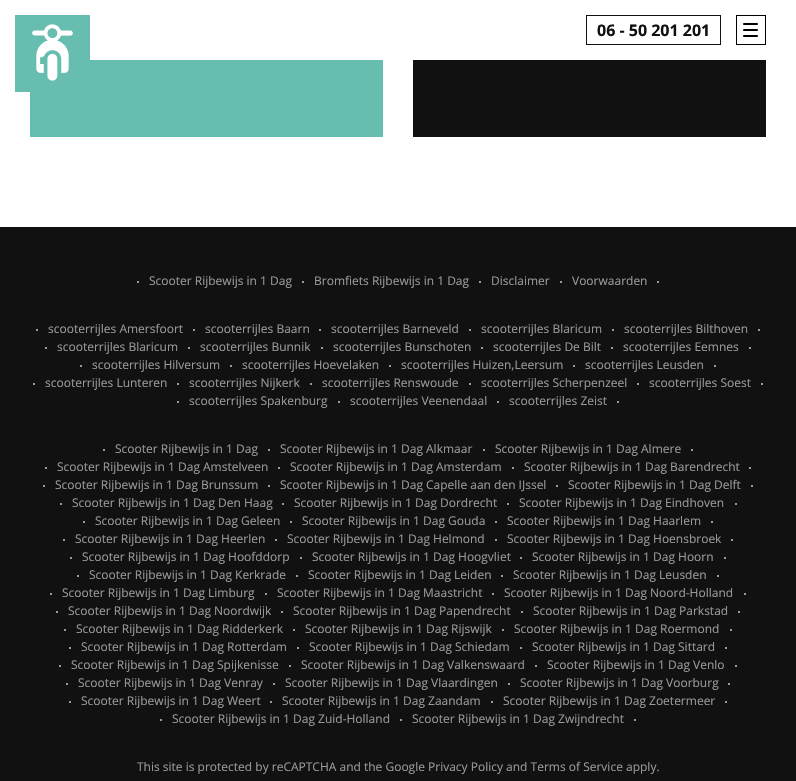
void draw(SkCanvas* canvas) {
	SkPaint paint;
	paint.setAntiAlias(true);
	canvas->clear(0xffffffff);
	paint.setColor(0xff67beb0);
	canvas->drawRect(SkRect::MakeXYWH(30, 60, 353, 77), paint);
	canvas->drawRect(SkRect::MakeXYWH(15, 15, 75, 77), paint);
	canvas->drawImageRect(SkImages::DeferredFromEncodedData(SkData::MakeFromFileName("img1.png")), SkRect::MakeXYWH(32, 24, 41, 57), SkSamplingOptions());
	paint.setStroke(true);
	paint.setStrokeWidth(1);
	paint.setColor(0xff111111);
	canvas->drawRect(SkRect::MakeXYWH(586.5, 15.5, 134, 29), paint);
	SkFont f1(fontMgr->matchFamilyStyle("Open Sans", SkFontStyle::Bold()), 16);
	f1.setSubpixel(true);
	paint.setStroke(false);
	canvas->drawString("06 - 50 201 201", 597, 36, f1, paint);
	canvas->drawImageRect(SkImages::DeferredFromEncodedData(SkData::MakeFromFileName("img2.png")), SkRect::MakeXYWH(736, 15, 30, 30), SkSamplingOptions());
	canvas->drawRect(SkRect::MakeXYWH(413, 60, 353, 77), paint);
	canvas->drawRect(SkRect::MakeXYWH(0, 227, 796, 554), paint);
	paint.setColor(0xff999999);
	canvas->drawRect(SkRect::MakeXYWH(137, 281, 2, 2), paint);
	SkFont f2(fontMgr->matchFamilyStyle("Open Sans", SkFontStyle::Normal()), 12);
	f2.setSubpixel(true);
	canvas->drawString("Scooter Rijbewijs in 1 Dag", 149, 285, f2, paint);
	canvas->drawRect(SkRect::MakeXYWH(302, 281, 2, 2), paint);
	canvas->drawString("Bromfiets Rijbewijs in 1 Dag", 314, 285, f2, paint);
	canvas->drawRect(SkRect::MakeXYWH(479, 281, 2, 2), paint);
	canvas->drawString("Disclaimer", 491, 285, f2, paint);
	canvas->drawRect(SkRect::MakeXYWH(560, 281, 2, 2), paint);
	canvas->drawString("Voorwaarden", 572, 285, f2, paint);
	canvas->drawRect(SkRect::MakeXYWH(657, 281, 2, 2), paint);
	canvas->drawRect(SkRect::MakeXYWH(36, 329, 2, 2), paint);
	canvas->drawString("scooterrijles Amersfoort", 48, 333, f2, paint);
	canvas->drawRect(SkRect::MakeXYWH(193, 329, 2, 2), paint);
	canvas->drawString("scooterrijles Baarn", 205, 333, f2, paint);
	canvas->drawRect(SkRect::MakeXYWH(319, 329, 2, 2), paint);
	canvas->drawString("scooterrijles Barneveld", 331, 333, f2, paint);
	canvas->drawRect(SkRect::MakeXYWH(469, 329, 2, 2), paint);
	canvas->drawString("scooterrijles Blaricum", 481, 333, f2, paint);
	canvas->drawRect(SkRect::MakeXYWH(612, 329, 2, 2), paint);
	canvas->drawString("scooterrijles Bilthoven", 624, 333, f2, paint);
	canvas->drawRect(SkRect::MakeXYWH(758, 329, 2, 2), paint);
	canvas->drawRect(SkRect::MakeXYWH(45, 347, 2, 2), paint);
	canvas->drawString("scooterrijles Blaricum", 57, 351, f2, paint);
	canvas->drawRect(SkRect::MakeXYWH(188, 347, 2, 2), paint);
	canvas->drawString("scooterrijles Bunnik", 200, 351, f2, paint);
	canvas->drawRect(SkRect::MakeXYWH(321, 347, 2, 2), paint);
	canvas->drawString("scooterrijles Bunschoten", 333, 351, f2, paint);
	canvas->drawRect(SkRect::MakeXYWH(481, 347, 2, 2), paint);
	canvas->drawString("scooterrijles De Bilt", 493, 351, f2, paint);
	canvas->drawRect(SkRect::MakeXYWH(611, 347, 2, 2), paint);
	canvas->drawString("scooterrijles Eemnes", 623, 351, f2, paint);
	canvas->drawRect(SkRect::MakeXYWH(749, 347, 2, 2), paint);
	canvas->drawRect(SkRect::MakeXYWH(80, 365, 2, 2), paint);
	canvas->drawString("scooterrijles Hilversum", 92, 369, f2, paint);
	canvas->drawRect(SkRect::MakeXYWH(230, 365, 2, 2), paint);
	canvas->drawString("scooterrijles Hoevelaken", 242, 369, f2, paint);
	canvas->drawRect(SkRect::MakeXYWH(389, 365, 2, 2), paint);
	canvas->drawString("scooterrijles Huizen,Leersum", 401, 369, f2, paint);
	canvas->drawRect(SkRect::MakeXYWH(573, 365, 2, 2), paint);
	canvas->drawString("scooterrijles Leusden", 585, 369, f2, paint);
	canvas->drawRect(SkRect::MakeXYWH(714, 365, 2, 2), paint);
	canvas->drawRect(SkRect::MakeXYWH(33, 383, 2, 2), paint);
	canvas->drawString("scooterrijles Lunteren", 45, 387, f2, paint);
	canvas->drawRect(SkRect::MakeXYWH(177, 383, 2, 2), paint);
	canvas->drawString("scooterrijles Nijkerk", 189, 387, f2, paint);
	canvas->drawRect(SkRect::MakeXYWH(310, 383, 2, 2), paint);
	canvas->drawString("scooterrijles Renswoude", 322, 387, f2, paint);
	canvas->drawRect(SkRect::MakeXYWH(469, 383, 2, 2), paint);
	canvas->drawString("scooterrijles Scherpenzeel", 481, 387, f2, paint);
	canvas->drawRect(SkRect::MakeXYWH(637, 383, 2, 2), paint);
	canvas->drawString("scooterrijles Soest", 649, 387, f2, paint);
	canvas->drawRect(SkRect::MakeXYWH(761, 383, 2, 2), paint);
	canvas->drawRect(SkRect::MakeXYWH(177, 401, 2, 2), paint);
	canvas->drawString("scooterrijles Spakenburg", 189, 405, f2, paint);
	canvas->drawRect(SkRect::MakeXYWH(338, 401, 2, 2), paint);
	canvas->drawString("scooterrijles Veenendaal", 350, 405, f2, paint);
	canvas->drawRect(SkRect::MakeXYWH(497, 401, 2, 2), paint);
	canvas->drawString("scooterrijles Zeist", 509, 405, f2, paint);
	canvas->drawRect(SkRect::MakeXYWH(617, 401, 2, 2), paint);
	canvas->drawRect(SkRect::MakeXYWH(103, 449, 2, 2), paint);
	canvas->drawString("Scooter Rijbewijs in 1 Dag", 115, 453, f2, paint);
	canvas->drawRect(SkRect::MakeXYWH(268, 449, 2, 2), paint);
	canvas->drawString("Scooter Rijbewijs in 1 Dag Alkmaar", 280, 453, f2, paint);
	canvas->drawRect(SkRect::MakeXYWH(483, 449, 2, 2), paint);
	canvas->drawString("Scooter Rijbewijs in 1 Dag Almere", 495, 453, f2, paint);
	canvas->drawRect(SkRect::MakeXYWH(691, 449, 2, 2), paint);
	canvas->drawRect(SkRect::MakeXYWH(45, 467, 2, 2), paint);
	canvas->drawString("Scooter Rijbewijs in 1 Dag Amstelveen", 57, 471, f2, paint);
	canvas->drawRect(SkRect::MakeXYWH(278, 467, 2, 2), paint);
	canvas->drawString("Scooter Rijbewijs in 1 Dag Amsterdam", 290, 471, f2, paint);
	canvas->drawRect(SkRect::MakeXYWH(512, 467, 2, 2), paint);
	canvas->drawString("Scooter Rijbewijs in 1 Dag Barendrecht", 524, 471, f2, paint);
	canvas->drawRect(SkRect::MakeXYWH(749, 467, 2, 2), paint);
	canvas->drawRect(SkRect::MakeXYWH(43, 485, 2, 2), paint);
	canvas->drawString("Scooter Rijbewijs in 1 Dag Brunssum", 55, 489, f2, paint);
	canvas->drawRect(SkRect::MakeXYWH(268, 485, 2, 2), paint);
	canvas->drawString("Scooter Rijbewijs in 1 Dag Capelle aan den IJssel", 280, 489, f2, paint);
	canvas->drawRect(SkRect::MakeXYWH(556, 485, 2, 2), paint);
	canvas->drawString("Scooter Rijbewijs in 1 Dag Delft", 568, 489, f2, paint);
	canvas->drawRect(SkRect::MakeXYWH(751, 485, 2, 2), paint);
	canvas->drawRect(SkRect::MakeXYWH(60, 503, 2, 2), paint);
	canvas->drawString("Scooter Rijbewijs in 1 Dag Den Haag", 72, 507, f2, paint);
	canvas->drawRect(SkRect::MakeXYWH(282, 503, 2, 2), paint);
	canvas->drawString("Scooter Rijbewijs in 1 Dag Dordrecht", 294, 507, f2, paint);
	canvas->drawRect(SkRect::MakeXYWH(507, 503, 2, 2), paint);
	canvas->drawString("Scooter Rijbewijs in 1 Dag Eindhoven", 519, 507, f2, paint);
	canvas->drawRect(SkRect::MakeXYWH(735, 503, 2, 2), paint);
	canvas->drawRect(SkRect::MakeXYWH(83, 521, 2, 2), paint);
	canvas->drawString("Scooter Rijbewijs in 1 Dag Geleen", 95, 525, f2, paint);
	canvas->drawRect(SkRect::MakeXYWH(290, 521, 2, 2), paint);
	canvas->drawString("Scooter Rijbewijs in 1 Dag Gouda", 302, 525, f2, paint);
	canvas->drawRect(SkRect::MakeXYWH(495, 521, 2, 2), paint);
	canvas->drawString("Scooter Rijbewijs in 1 Dag Haarlem", 507, 525, f2, paint);
	canvas->drawRect(SkRect::MakeXYWH(711, 521, 2, 2), paint);
	canvas->drawRect(SkRect::MakeXYWH(63, 539, 2, 2), paint);
	canvas->drawString("Scooter Rijbewijs in 1 Dag Heerlen", 75, 543, f2, paint);
	canvas->drawRect(SkRect::MakeXYWH(275, 539, 2, 2), paint);
	canvas->drawString("Scooter Rijbewijs in 1 Dag Helmond", 287, 543, f2, paint);
	canvas->drawRect(SkRect::MakeXYWH(495, 539, 2, 2), paint);
	canvas->drawString("Scooter Rijbewijs in 1 Dag Hoensbroek", 507, 543, f2, paint);
	canvas->drawRect(SkRect::MakeXYWH(731, 539, 2, 2), paint);
	canvas->drawRect(SkRect::MakeXYWH(70, 557, 2, 2), paint);
	canvas->drawString("Scooter Rijbewijs in 1 Dag Hoofddorp", 82, 561, f2, paint);
	canvas->drawRect(SkRect::MakeXYWH(300, 557, 2, 2), paint);
	canvas->drawString("Scooter Rijbewijs in 1 Dag Hoogvliet", 312, 561, f2, paint);
	canvas->drawRect(SkRect::MakeXYWH(520, 557, 2, 2), paint);
	canvas->drawString("Scooter Rijbewijs in 1 Dag Hoorn", 532, 561, f2, paint);
	canvas->drawRect(SkRect::MakeXYWH(724, 557, 2, 2), paint);
	canvas->drawRect(SkRect::MakeXYWH(77, 575, 2, 2), paint);
	canvas->drawString("Scooter Rijbewijs in 1 Dag Kerkrade", 89, 579, f2, paint);
	canvas->drawRect(SkRect::MakeXYWH(296, 575, 2, 2), paint);
	canvas->drawString("Scooter Rijbewijs in 1 Dag Leiden", 308, 579, f2, paint);
	canvas->drawRect(SkRect::MakeXYWH(501, 575, 2, 2), paint);
	canvas->drawString("Scooter Rijbewijs in 1 Dag Leusden", 513, 579, f2, paint);
	canvas->drawRect(SkRect::MakeXYWH(717, 575, 2, 2), paint);
	canvas->drawRect(SkRect::MakeXYWH(50, 593, 2, 2), paint);
	canvas->drawString("Scooter Rijbewijs in 1 Dag Limburg", 62, 597, f2, paint);
	canvas->drawRect(SkRect::MakeXYWH(265, 593, 2, 2), paint);
	canvas->drawString("Scooter Rijbewijs in 1 Dag Maastricht", 277, 597, f2, paint);
	canvas->drawRect(SkRect::MakeXYWH(492, 593, 2, 2), paint);
	canvas->drawString("Scooter Rijbewijs in 1 Dag Noord-Holland", 504, 597, f2, paint);
	canvas->drawRect(SkRect::MakeXYWH(744, 593, 2, 2), paint);
	canvas->drawRect(SkRect::MakeXYWH(56, 611, 2, 2), paint);
	canvas->drawString("Scooter Rijbewijs in 1 Dag Noordwijk", 68, 615, f2, paint);
	canvas->drawRect(SkRect::MakeXYWH(281, 611, 2, 2), paint);
	canvas->drawString("Scooter Rijbewijs in 1 Dag Papendrecht", 293, 615, f2, paint);
	canvas->drawRect(SkRect::MakeXYWH(521, 611, 2, 2), paint);
	canvas->drawString("Scooter Rijbewijs in 1 Dag Parkstad", 533, 615, f2, paint);
	canvas->drawRect(SkRect::MakeXYWH(738, 611, 2, 2), paint);
	canvas->drawRect(SkRect::MakeXYWH(64, 629, 2, 2), paint);
	canvas->drawString("Scooter Rijbewijs in 1 Dag Ridderkerk", 76, 633, f2, paint);
	canvas->drawRect(SkRect::MakeXYWH(293, 629, 2, 2), paint);
	canvas->drawString("Scooter Rijbewijs in 1 Dag Rijswijk", 305, 633, f2, paint);
	canvas->drawRect(SkRect::MakeXYWH(502, 629, 2, 2), paint);
	canvas->drawString("Scooter Rijbewijs in 1 Dag Roermond", 514, 633, f2, paint);
	canvas->drawRect(SkRect::MakeXYWH(730, 629, 2, 2), paint);
	canvas->drawRect(SkRect::MakeXYWH(69, 647, 2, 2), paint);
	canvas->drawString("Scooter Rijbewijs in 1 Dag Rotterdam", 81, 651, f2, paint);
	canvas->drawRect(SkRect::MakeXYWH(297, 647, 2, 2), paint);
	canvas->drawString("Scooter Rijbewijs in 1 Dag Schiedam", 309, 651, f2, paint);
	canvas->drawRect(SkRect::MakeXYWH(520, 647, 2, 2), paint);
	canvas->drawString("Scooter Rijbewijs in 1 Dag Sittard", 532, 651, f2, paint);
	canvas->drawRect(SkRect::MakeXYWH(725, 647, 2, 2), paint);
	canvas->drawRect(SkRect::MakeXYWH(59, 665, 2, 2), paint);
	canvas->drawString("Scooter Rijbewijs in 1 Dag Spijkenisse", 71, 669, f2, paint);
	canvas->drawRect(SkRect::MakeXYWH(289, 665, 2, 2), paint);
	canvas->drawString("Scooter Rijbewijs in 1 Dag Valkenswaard", 301, 669, f2, paint);
	canvas->drawRect(SkRect::MakeXYWH(535, 665, 2, 2), paint);
	canvas->drawString("Scooter Rijbewijs in 1 Dag Venlo", 547, 669, f2, paint);
	canvas->drawRect(SkRect::MakeXYWH(735, 665, 2, 2), paint);
	canvas->drawRect(SkRect::MakeXYWH(66, 683, 2, 2), paint);
	canvas->drawString("Scooter Rijbewijs in 1 Dag Venray", 78, 687, f2, paint);
	canvas->drawRect(SkRect::MakeXYWH(273, 683, 2, 2), paint);
	canvas->drawString("Scooter Rijbewijs in 1 Dag Vlaardingen", 285, 687, f2, paint);
	canvas->drawRect(SkRect::MakeXYWH(508, 683, 2, 2), paint);
	canvas->drawString("Scooter Rijbewijs in 1 Dag Voorburg", 520, 687, f2, paint);
	canvas->drawRect(SkRect::MakeXYWH(728, 683, 2, 2), paint);
	canvas->drawRect(SkRect::MakeXYWH(69, 701, 2, 2), paint);
	canvas->drawString("Scooter Rijbewijs in 1 Dag Weert", 81, 705, f2, paint);
	canvas->drawRect(SkRect::MakeXYWH(270, 701, 2, 2), paint);
	canvas->drawString("Scooter Rijbewijs in 1 Dag Zaandam", 282, 705, f2, paint);
	canvas->drawRect(SkRect::MakeXYWH(491, 701, 2, 2), paint);
	canvas->drawString("Scooter Rijbewijs in 1 Dag Zoetermeer", 503, 705, f2, paint);
	canvas->drawRect(SkRect::MakeXYWH(725, 701, 2, 2), paint);
	canvas->drawRect(SkRect::MakeXYWH(160, 719, 2, 2), paint);
	canvas->drawString("Scooter Rijbewijs in 1 Dag Zuid-Holland", 172, 723, f2, paint);
	canvas->drawRect(SkRect::MakeXYWH(400, 719, 2, 2), paint);
	canvas->drawString("Scooter Rijbewijs in 1 Dag Zwijndrecht", 412, 723, f2, paint);
	canvas->drawRect(SkRect::MakeXYWH(634, 719, 2, 2), paint);
	canvas->drawString("This site is protected by reCAPTCHA and the Google Privacy Policy and Terms of Service apply.", 137, 771, f2, paint);
}
